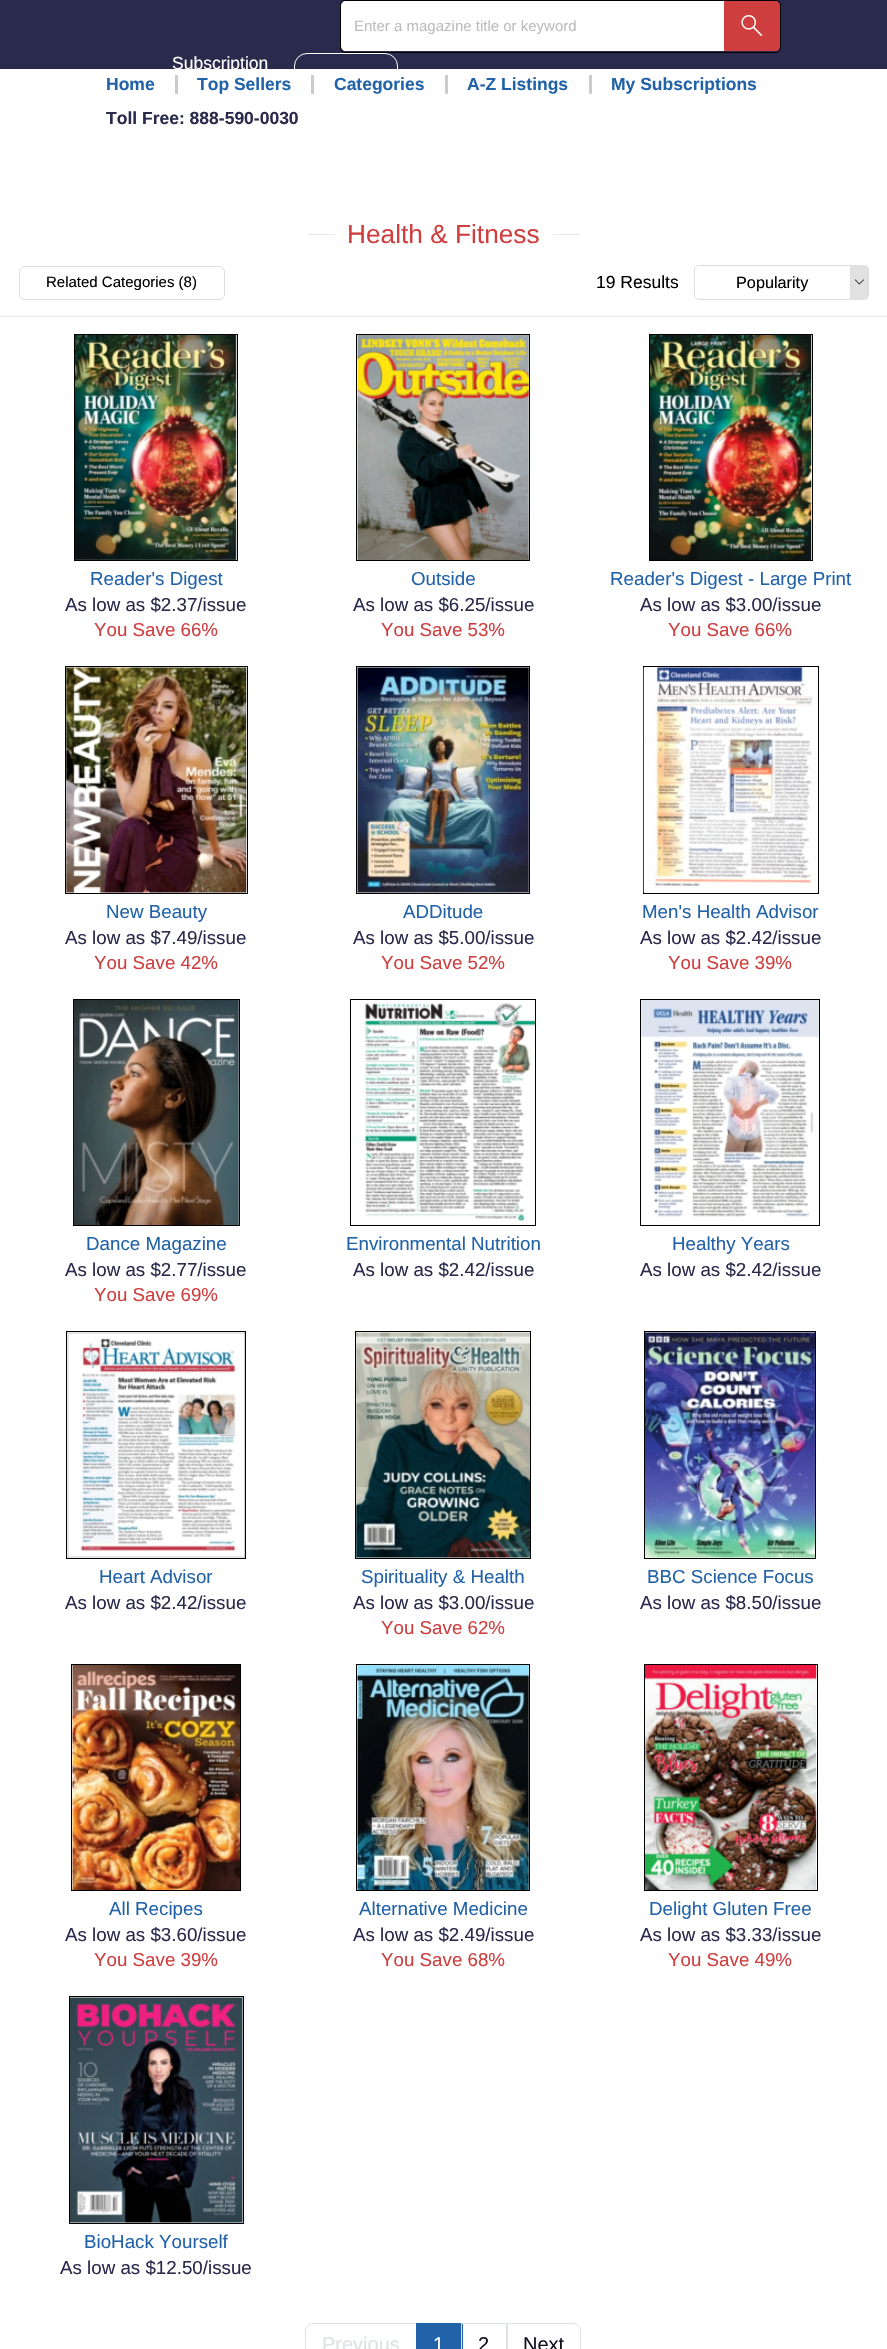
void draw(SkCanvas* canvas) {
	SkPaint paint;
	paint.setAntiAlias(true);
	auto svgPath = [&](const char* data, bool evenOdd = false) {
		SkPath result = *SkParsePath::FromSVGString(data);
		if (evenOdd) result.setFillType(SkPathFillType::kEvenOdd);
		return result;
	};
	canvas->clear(0xffffffff);
	paint.setColor(0xff2a2a4c);
	canvas->drawRect(SkRect::MakeXYWH(0, 0, 887, 69), paint);
	paint.setStroke(true);
	paint.setStrokeWidth(1);
	paint.setColor(0xff000000);
	canvas->drawRoundRect(SkRect::MakeXYWH(340.5, 0.5, 440, 52), 4.5, 4.5, paint);
	paint.setStroke(false);
	paint.setColor(0xffffffff);
	canvas->drawPath(svgPath("M346 1H724V51H346C343 51 341 49 341 46V6C341 3 343 1 346 1Z"), paint);
	SkFont f1(fontMgr->matchFamilyStyle("Liberation Sans", SkFontStyle::Normal()), 15);
	f1.setSubpixel(true);
	paint.setColor(0xffbdbdbd);
	canvas->drawString("Enter a magazine title or keyword", 354, 31, f1, paint);
	paint.setColor(0xffcf3f3f);
	canvas->drawPath(svgPath("M724 1H775C778 1 780 3 780 6V46C780 49 778 51 775 51H724Z"), paint);
	canvas->drawImageRect(SkImages::DeferredFromEncodedData(SkData::MakeFromFileName("img1.png")), SkRect::MakeXYWH(741, 15, 22, 21), SkSamplingOptions());
	SkFont f2(fontMgr->matchFamilyStyle("Liberation Sans", SkFontStyle::Normal()), 17.5);
	f2.setSubpixel(true);
	paint.setColor(0xffffffff);
	canvas->drawString("Subscription", 172, 69, f2, paint);
	paint.setStroke(true);
	canvas->drawRoundRect(SkRect::MakeXYWH(294.5, 53.5, 103, 39), 12.5, 12.5, paint);
	paint.setStroke(false);
	paint.setColor(0xffcccccc);
	canvas->drawRect(SkRect::MakeXYWH(175, 75, 3, 19), paint);
	SkFont f3(fontMgr->matchFamilyStyle("Liberation Sans", SkFontStyle::Bold()), 17.5);
	f3.setSubpixel(true);
	paint.setColor(0xff2162a8);
	canvas->drawString("Home", 106, 90, f3, paint);
	paint.setColor(0xffcccccc);
	canvas->drawRect(SkRect::MakeXYWH(311, 75, 3, 19), paint);
	paint.setColor(0xff2162a8);
	canvas->drawString("Top Sellers", 197, 90, f3, paint);
	paint.setColor(0xffcccccc);
	canvas->drawRect(SkRect::MakeXYWH(445, 75, 3, 19), paint);
	paint.setColor(0xff2162a8);
	canvas->drawString("Categories", 334, 90, f3, paint);
	paint.setColor(0xffcccccc);
	canvas->drawRect(SkRect::MakeXYWH(589, 75, 3, 19), paint);
	paint.setColor(0xff2162a8);
	canvas->drawString("A-Z Listings", 467, 90, f3, paint);
	canvas->drawString("My Subscriptions", 611, 90, f3, paint);
	paint.setColor(0xff2a2a4c);
	canvas->drawString("Toll Free: 888-590-0030", 106, 124, f3, paint);
	paint.setColor(0xffe9e9e9);
	canvas->drawRect(SkRect::MakeXYWH(308, 234, 27, 1), paint);
	SkFont f4(fontMgr->matchFamilyStyle("Liberation Sans", SkFontStyle::Normal()), 26.25);
	f4.setSubpixel(true);
	paint.setColor(0xffcf3f3f);
	canvas->drawString("Health & Fitness", 347, 243, f4, paint);
	paint.setColor(0xffe9e9e9);
	canvas->drawRect(SkRect::MakeXYWH(553, 234, 27, 1), paint);
	paint.setStroke(true);
	paint.setColor(0xffdddddd);
	canvas->drawRoundRect(SkRect::MakeXYWH(19.5, 266.5, 205, 33), 5.5, 5.5, paint);
	paint.setStroke(false);
	paint.setColor(0xff000000);
	canvas->drawString("Related Categories (8)", 46, 287, f1, paint);
	canvas->drawString("19 Results", 596, 288, f2, paint);
	paint.setStroke(true);
	paint.setColor(0xffdedede);
	canvas->drawRoundRect(SkRect::MakeXYWH(694.5, 265.5, 174, 34), 4.5, 4.5, paint);
	SkFont f5(fontMgr->matchFamilyStyle("Liberation Sans", SkFontStyle::Normal()), 16.25);
	f5.setSubpixel(true);
	paint.setStroke(false);
	paint.setColor(0xff000000);
	canvas->drawString("Popularity", 736, 288, f5, paint);
	paint.setColor(0xffe1e1e1);
	canvas->drawRect(SkRect::MakeXYWH(851, 266, 17, 33), paint);
	paint.setColor(0xffdedede);
	canvas->drawRect(SkRect::MakeXYWH(850, 266, 1, 33), paint);
	canvas->drawImageRect(SkImages::DeferredFromEncodedData(SkData::MakeFromFileName("img2.png")), SkRect::MakeXYWH(854, 279, 10, 6), SkSamplingOptions());
	paint.setColor(0xffe9e9e9);
	canvas->drawRect(SkRect::MakeXYWH(0, 316, 887, 1), paint);
	paint.setStroke(true);
	paint.setColor(0xff000000);
	canvas->drawRect(SkRect::MakeXYWH(74.5, 334.5, 163, 226), paint);
	canvas->drawImageRect(SkImages::DeferredFromEncodedData(SkData::MakeFromFileName("img3.png")), SkRect::MakeXYWH(75, 335, 162, 225), SkSamplingOptions());
	SkFont f6(fontMgr->matchFamilyStyle("Liberation Sans", SkFontStyle::Normal()), 18.75);
	f6.setSubpixel(true);
	paint.setStroke(false);
	paint.setColor(0xff2162a8);
	canvas->drawString("Reader's Digest", 90, 585, f6, paint);
	paint.setColor(0xff2a2a4c);
	canvas->drawString("As low as $2.37/issue", 65, 611, f6, paint);
	paint.setColor(0xffcf3f3f);
	canvas->drawString("You Save 66%", 94, 636, f6, paint);
	paint.setStroke(true);
	paint.setColor(0xff000000);
	canvas->drawRect(SkRect::MakeXYWH(356.5, 334.5, 173, 226), paint);
	canvas->drawImageRect(SkImages::DeferredFromEncodedData(SkData::MakeFromFileName("img4.png")), SkRect::MakeXYWH(357, 335, 172, 225), SkSamplingOptions());
	paint.setStroke(false);
	paint.setColor(0xff2162a8);
	canvas->drawString("Outside", 411, 585, f6, paint);
	paint.setColor(0xff2a2a4c);
	canvas->drawString("As low as $6.25/issue", 353, 611, f6, paint);
	paint.setColor(0xffcf3f3f);
	canvas->drawString("You Save 53%", 381, 636, f6, paint);
	paint.setStroke(true);
	paint.setColor(0xff000000);
	canvas->drawRect(SkRect::MakeXYWH(649.5, 334.5, 163, 226), paint);
	canvas->drawImageRect(SkImages::DeferredFromEncodedData(SkData::MakeFromFileName("img5.png")), SkRect::MakeXYWH(650, 335, 162, 225), SkSamplingOptions());
	paint.setStroke(false);
	paint.setColor(0xff2162a8);
	canvas->drawString("Reader's Digest - Large Print", 610, 585, f6, paint);
	paint.setColor(0xff2a2a4c);
	canvas->drawString("As low as $3.00/issue", 640, 611, f6, paint);
	paint.setColor(0xffcf3f3f);
	canvas->drawString("You Save 66%", 668, 636, f6, paint);
	paint.setStroke(true);
	paint.setColor(0xff000000);
	canvas->drawRect(SkRect::MakeXYWH(65.5, 666.5, 182, 227), paint);
	canvas->drawImageRect(SkImages::DeferredFromEncodedData(SkData::MakeFromFileName("img6.png")), SkRect::MakeXYWH(66, 667, 181, 226), SkSamplingOptions());
	paint.setStroke(false);
	paint.setColor(0xff2162a8);
	canvas->drawString("New Beauty", 106, 918, f6, paint);
	paint.setColor(0xff2a2a4c);
	canvas->drawString("As low as $7.49/issue", 65, 944, f6, paint);
	paint.setColor(0xffcf3f3f);
	canvas->drawString("You Save 42%", 94, 969, f6, paint);
	paint.setStroke(true);
	paint.setColor(0xff000000);
	canvas->drawRect(SkRect::MakeXYWH(356.5, 666.5, 173, 227), paint);
	canvas->drawImageRect(SkImages::DeferredFromEncodedData(SkData::MakeFromFileName("img7.png")), SkRect::MakeXYWH(357, 667, 172, 226), SkSamplingOptions());
	paint.setStroke(false);
	paint.setColor(0xff2162a8);
	canvas->drawString("ADDitude", 403, 918, f6, paint);
	paint.setColor(0xff2a2a4c);
	canvas->drawString("As low as $5.00/issue", 353, 944, f6, paint);
	paint.setColor(0xffcf3f3f);
	canvas->drawString("You Save 52%", 381, 969, f6, paint);
	paint.setStroke(true);
	paint.setColor(0xff000000);
	canvas->drawRect(SkRect::MakeXYWH(643.5, 666.5, 175, 227), paint);
	canvas->drawImageRect(SkImages::DeferredFromEncodedData(SkData::MakeFromFileName("img8.png")), SkRect::MakeXYWH(643, 667, 174, 226), SkSamplingOptions());
	paint.setStroke(false);
	paint.setColor(0xff2162a8);
	canvas->drawString("Men's Health Advisor", 642, 918, f6, paint);
	paint.setColor(0xff2a2a4c);
	canvas->drawString("As low as $2.42/issue", 640, 944, f6, paint);
	paint.setColor(0xffcf3f3f);
	canvas->drawString("You Save 39%", 668, 969, f6, paint);
	paint.setStroke(true);
	paint.setColor(0xff000000);
	canvas->drawRect(SkRect::MakeXYWH(73.5, 999.5, 166, 226), paint);
	canvas->drawImageRect(SkImages::DeferredFromEncodedData(SkData::MakeFromFileName("img9.png")), SkRect::MakeXYWH(73, 1000, 166, 225), SkSamplingOptions());
	paint.setStroke(false);
	paint.setColor(0xff2162a8);
	canvas->drawString("Dance Magazine", 86, 1250, f6, paint);
	paint.setColor(0xff2a2a4c);
	canvas->drawString("As low as $2.77/issue", 65, 1276, f6, paint);
	paint.setColor(0xffcf3f3f);
	canvas->drawString("You Save 69%", 94, 1301, f6, paint);
	paint.setStroke(true);
	paint.setColor(0xff000000);
	canvas->drawRect(SkRect::MakeXYWH(350.5, 999.5, 185, 226), paint);
	canvas->drawImageRect(SkImages::DeferredFromEncodedData(SkData::MakeFromFileName("img10.png")), SkRect::MakeXYWH(363, 1003, 172, 218), SkSamplingOptions());
	paint.setStroke(false);
	paint.setColor(0xff2162a8);
	canvas->drawString("Environmental Nutrition", 346, 1250, f6, paint);
	paint.setColor(0xff2a2a4c);
	canvas->drawString("As low as $2.42/issue", 353, 1276, f6, paint);
	paint.setStroke(true);
	paint.setColor(0xff000000);
	canvas->drawRect(SkRect::MakeXYWH(640.5, 999.5, 179, 226), paint);
	canvas->drawImageRect(SkImages::DeferredFromEncodedData(SkData::MakeFromFileName("img11.png")), SkRect::MakeXYWH(641, 1000, 178, 217), SkSamplingOptions());
	paint.setStroke(false);
	paint.setColor(0xff2162a8);
	canvas->drawString("Healthy Years", 672, 1250, f6, paint);
	paint.setColor(0xff2a2a4c);
	canvas->drawString("As low as $2.42/issue", 640, 1276, f6, paint);
	paint.setStroke(true);
	paint.setColor(0xff000000);
	canvas->drawRect(SkRect::MakeXYWH(66.5, 1331.5, 179, 227), paint);
	canvas->drawImageRect(SkImages::DeferredFromEncodedData(SkData::MakeFromFileName("img12.png")), SkRect::MakeXYWH(67, 1332, 178, 226), SkSamplingOptions());
	paint.setStroke(false);
	paint.setColor(0xff2162a8);
	canvas->drawString("Heart Advisor", 99, 1583, f6, paint);
	paint.setColor(0xff2a2a4c);
	canvas->drawString("As low as $2.42/issue", 65, 1609, f6, paint);
	paint.setStroke(true);
	paint.setColor(0xff000000);
	canvas->drawRect(SkRect::MakeXYWH(355.5, 1331.5, 175, 227), paint);
	canvas->drawImageRect(SkImages::DeferredFromEncodedData(SkData::MakeFromFileName("img13.png")), SkRect::MakeXYWH(356, 1332, 174, 226), SkSamplingOptions());
	paint.setStroke(false);
	paint.setColor(0xff2162a8);
	canvas->drawString("Spirituality & Health", 361, 1583, f6, paint);
	paint.setColor(0xff2a2a4c);
	canvas->drawString("As low as $3.00/issue", 353, 1609, f6, paint);
	paint.setColor(0xffcf3f3f);
	canvas->drawString("You Save 62%", 381, 1634, f6, paint);
	paint.setStroke(true);
	paint.setColor(0xff000000);
	canvas->drawRect(SkRect::MakeXYWH(644.5, 1331.5, 171, 227), paint);
	canvas->drawImageRect(SkImages::DeferredFromEncodedData(SkData::MakeFromFileName("img14.png")), SkRect::MakeXYWH(645, 1332, 170, 226), SkSamplingOptions());
	paint.setStroke(false);
	paint.setColor(0xff2162a8);
	canvas->drawString("BBC Science Focus", 647, 1583, f6, paint);
	paint.setColor(0xff2a2a4c);
	canvas->drawString("As low as $8.50/issue", 640, 1609, f6, paint);
	paint.setStroke(true);
	paint.setColor(0xff000000);
	canvas->drawRect(SkRect::MakeXYWH(71.5, 1664.5, 169, 226), paint);
	canvas->drawImageRect(SkImages::DeferredFromEncodedData(SkData::MakeFromFileName("img15.png")), SkRect::MakeXYWH(72, 1665, 168, 225), SkSamplingOptions());
	paint.setStroke(false);
	paint.setColor(0xff2162a8);
	canvas->drawString("All Recipes", 109, 1915, f6, paint);
	paint.setColor(0xff2a2a4c);
	canvas->drawString("As low as $3.60/issue", 65, 1941, f6, paint);
	paint.setColor(0xffcf3f3f);
	canvas->drawString("You Save 39%", 94, 1966, f6, paint);
	paint.setStroke(true);
	paint.setColor(0xff000000);
	canvas->drawRect(SkRect::MakeXYWH(356.5, 1664.5, 173, 226), paint);
	canvas->drawImageRect(SkImages::DeferredFromEncodedData(SkData::MakeFromFileName("img16.png")), SkRect::MakeXYWH(357, 1665, 172, 225), SkSamplingOptions());
	paint.setStroke(false);
	paint.setColor(0xff2162a8);
	canvas->drawString("Alternative Medicine", 359, 1915, f6, paint);
	paint.setColor(0xff2a2a4c);
	canvas->drawString("As low as $2.49/issue", 353, 1941, f6, paint);
	paint.setColor(0xffcf3f3f);
	canvas->drawString("You Save 68%", 381, 1966, f6, paint);
	paint.setStroke(true);
	paint.setColor(0xff000000);
	canvas->drawRect(SkRect::MakeXYWH(644.5, 1664.5, 173, 226), paint);
	canvas->drawImageRect(SkImages::DeferredFromEncodedData(SkData::MakeFromFileName("img17.png")), SkRect::MakeXYWH(645, 1665, 172, 225), SkSamplingOptions());
	paint.setStroke(false);
	paint.setColor(0xff2162a8);
	canvas->drawString("Delight Gluten Free", 649, 1915, f6, paint);
	paint.setColor(0xff2a2a4c);
	canvas->drawString("As low as $3.33/issue", 640, 1941, f6, paint);
	paint.setColor(0xffcf3f3f);
	canvas->drawString("You Save 49%", 668, 1966, f6, paint);
	paint.setStroke(true);
	paint.setColor(0xff000000);
	canvas->drawRect(SkRect::MakeXYWH(69.5, 1996.5, 174, 227), paint);
	canvas->drawImageRect(SkImages::DeferredFromEncodedData(SkData::MakeFromFileName("img18.png")), SkRect::MakeXYWH(70, 1997, 173, 226), SkSamplingOptions());
	paint.setStroke(false);
	paint.setColor(0xff2162a8);
	canvas->drawString("BioHack Yourself", 84, 2248, f6, paint);
	paint.setColor(0xff2a2a4c);
	canvas->drawString("As low as $12.50/issue", 60, 2274, f6, paint);
	paint.setStroke(true);
	paint.setColor(0xffdee2e6);
	canvas->drawPath(svgPath("M313 2323.5H417.5V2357.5H313C309 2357.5 305.5 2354 305.5 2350V2331C305.5 2327 309 2323.5 313 2323.5Z"), paint);
	SkFont f7(fontMgr->matchFamilyStyle("Liberation Sans", SkFontStyle::Normal()), 20);
	f7.setSubpixel(true);
	paint.setStroke(false);
	canvas->drawString("Previous", 322, 2351, f7, paint);
	paint.setColor(0xff2162a8);
	canvas->drawRect(SkRect::MakeXYWH(416, 2323, 47, 26), paint);
	paint.setColor(0xffffffff);
	canvas->drawString("1", 433, 2351, f7, paint);
	paint.setStroke(true);
	paint.setColor(0xffdee2e6);
	canvas->drawRect(SkRect::MakeXYWH(461.5, 2323.5, 46, 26), paint);
	paint.setStroke(false);
	paint.setColor(0xff11101f);
	canvas->drawString("2", 478, 2351, f7, paint);
	paint.setStroke(true);
	paint.setColor(0xffdee2e6);
	canvas->drawPath(svgPath("M506.5 2323.5H573C577 2323.5 580.5 2327 580.5 2331V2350C580.5 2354 577 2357.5 573 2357.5H506.5Z"), paint);
	paint.setStroke(false);
	paint.setColor(0xff11101f);
	canvas->drawString("Next", 523, 2351, f7, paint);
}
